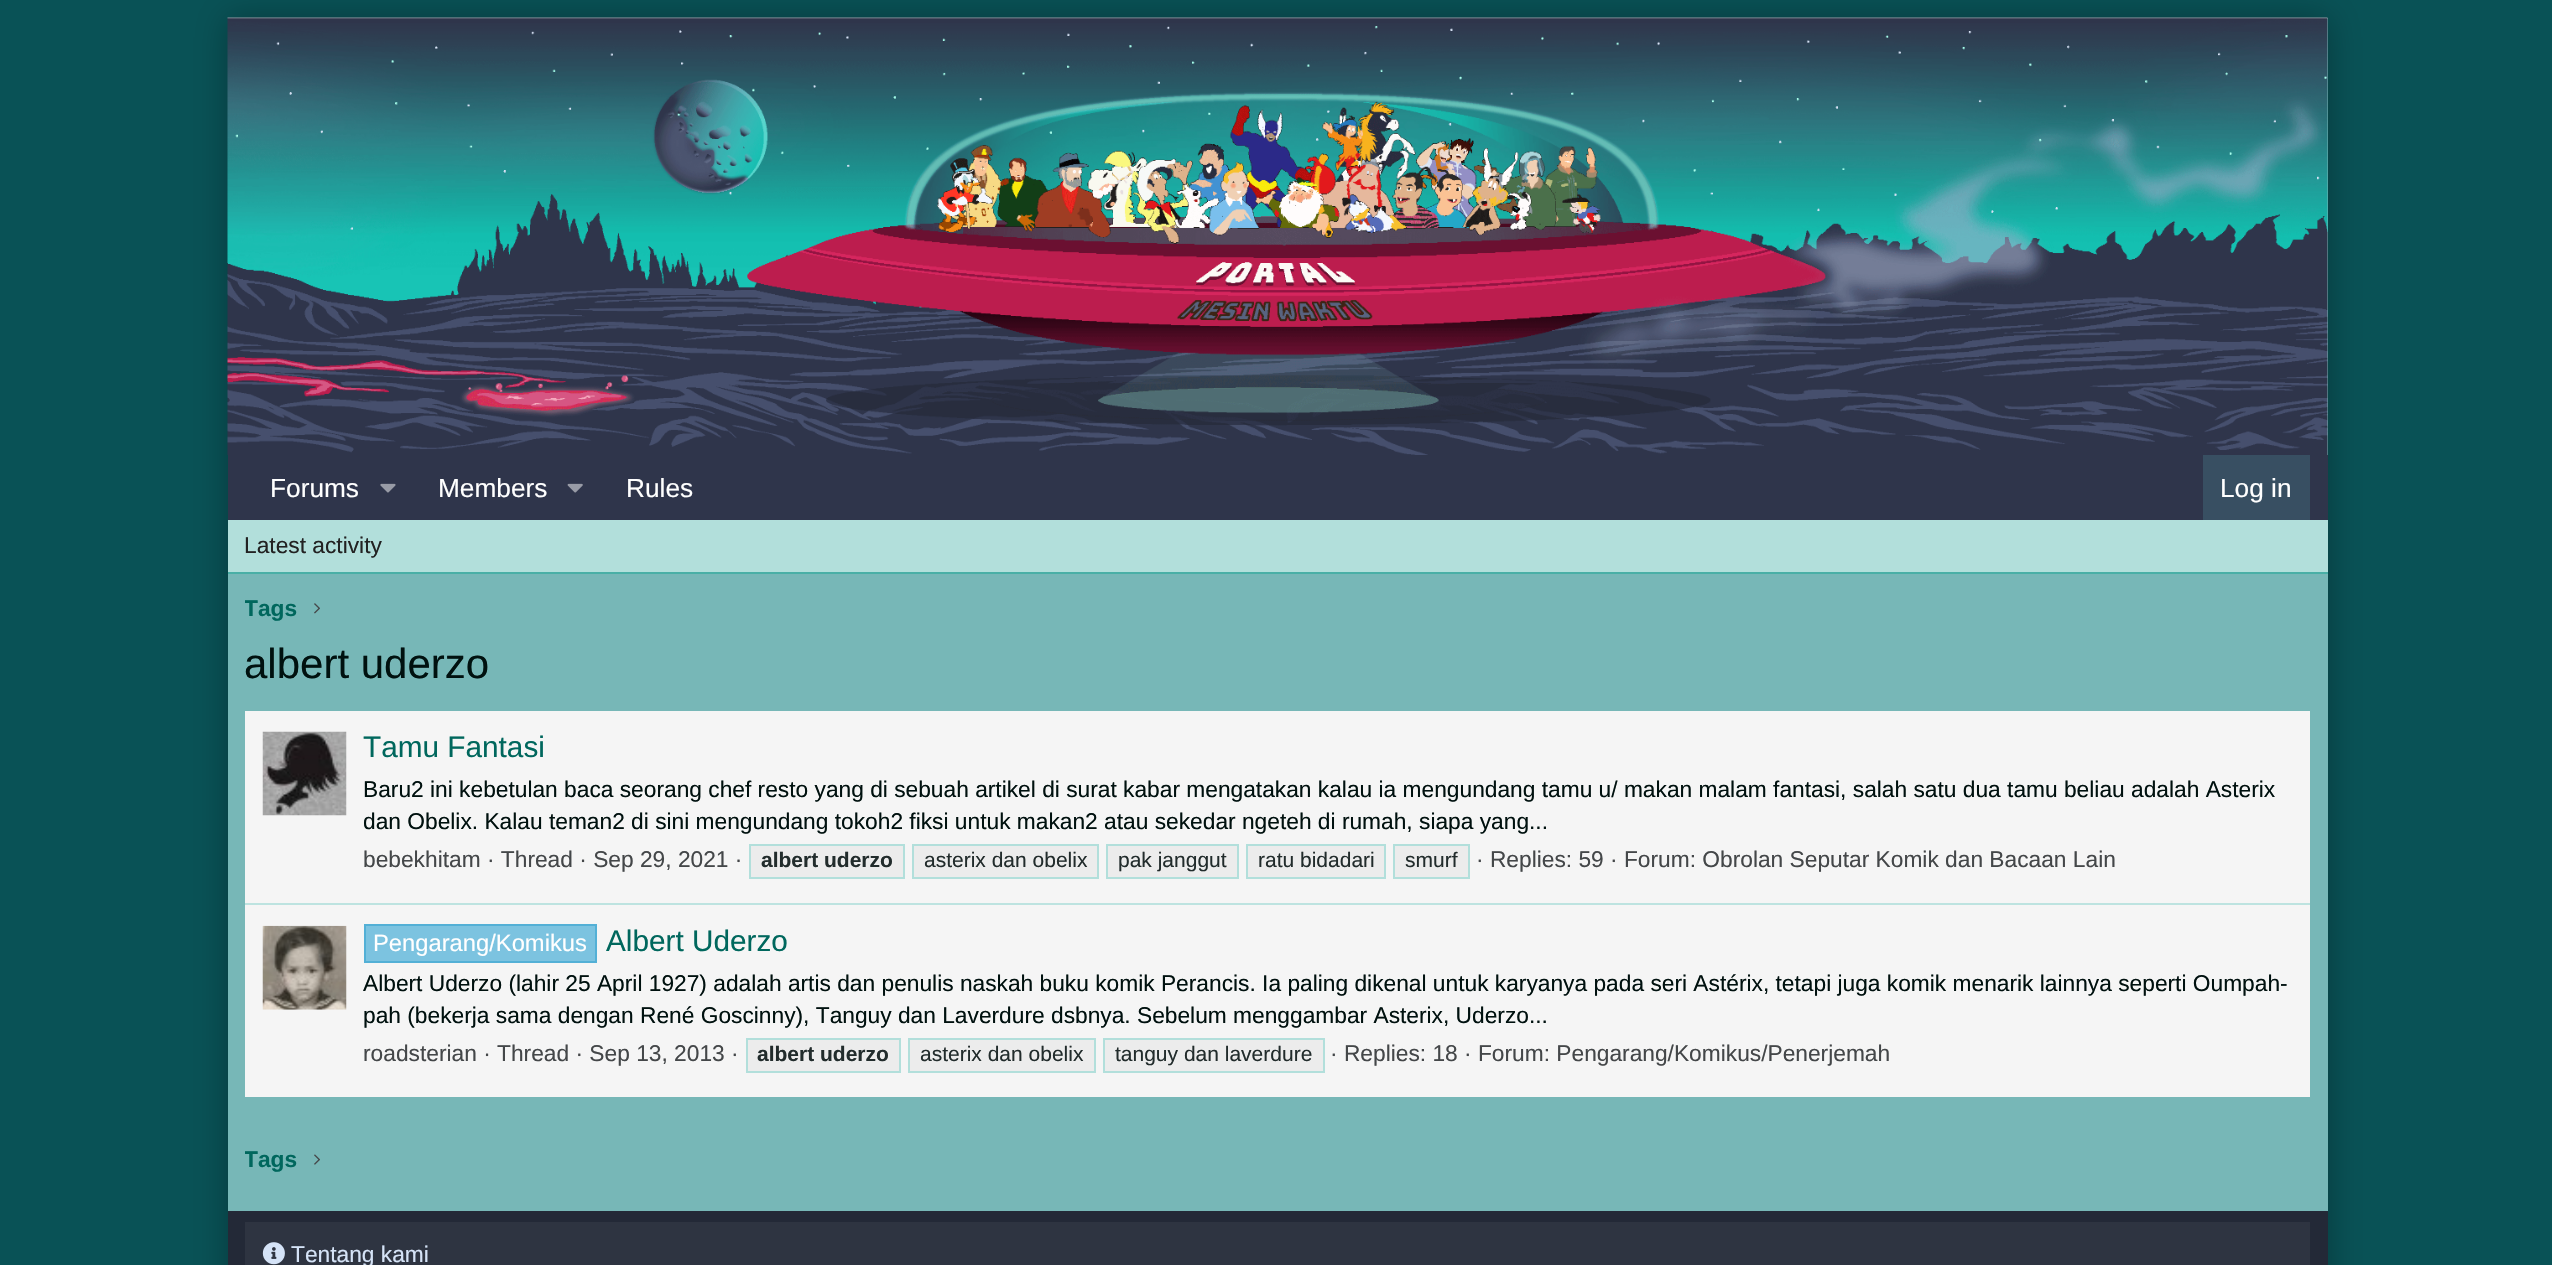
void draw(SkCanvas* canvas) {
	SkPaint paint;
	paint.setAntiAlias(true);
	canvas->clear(0xff095256);
	paint.setColor(0x4d000000);
	paint.setMaskFilter(SkMaskFilter::MakeBlur(kNormal_SkBlurStyle, 16));
	canvas->drawRect(SkRect::MakeXYWH(228, 18, 2100, 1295), paint);
	paint.setMaskFilter(nullptr);
	paint.setColor(0xff77b7b7);
	canvas->drawRect(SkRect::MakeXYWH(228, 18, 2100, 1193), paint);
	canvas->drawImageRect(SkImages::DeferredFromEncodedData(SkData::MakeFromFileName("img1.png")), SkRect::MakeXYWH(227, 17, 2101, 438), SkSamplingOptions());
	paint.setColor(0xff2f354b);
	canvas->drawRect(SkRect::MakeXYWH(228, 455, 2100, 65), paint);
	SkFont f1(fontMgr->matchFamilyStyle("Liberation Sans", SkFontStyle::Normal()), 26.25);
	f1.setSubpixel(true);
	paint.setColor(0xffffffff);
	canvas->drawString("Forums", 270, 497, f1, paint);
	canvas->drawImageRect(SkImages::DeferredFromEncodedData(SkData::MakeFromFileName("img2.png")), SkRect::MakeXYWH(380, 483, 16, 10), SkSamplingOptions());
	canvas->drawString("Members", 438, 497, f1, paint);
	canvas->drawImageRect(SkImages::DeferredFromEncodedData(SkData::MakeFromFileName("img3.png")), SkRect::MakeXYWH(567, 483, 16, 10), SkSamplingOptions());
	canvas->drawString("Rules", 626, 497, f1, paint);
	paint.setColor(0xff384f62);
	canvas->drawRect(SkRect::MakeXYWH(2203, 455, 107, 65), paint);
	paint.setColor(0xffffffff);
	canvas->drawString("Log in", 2220, 497, f1, paint);
	paint.setColor(0xffb2dfdb);
	canvas->drawRect(SkRect::MakeXYWH(228, 520, 2100, 52), paint);
	paint.setColor(0xff49afa6);
	canvas->drawRect(SkRect::MakeXYWH(228, 572, 2100, 2), paint);
	SkFont f2(fontMgr->matchFamilyStyle("Liberation Sans", SkFontStyle::Normal()), 22.75);
	f2.setSubpixel(true);
	paint.setColor(0xff222222);
	canvas->drawString("Latest activity", 244, 553, f2, paint);
	canvas->save();
	canvas->clipRect(SkRect::MakeXYWH(245, 592, 53, 35));
	SkFont f3(fontMgr->matchFamilyStyle("Liberation Sans", SkFontStyle::Bold()), 22.75);
	f3.setSubpixel(true);
	paint.setColor(0xff00675d);
	canvas->drawString("Tags", 244, 616, f3, paint);
	canvas->restore();
	canvas->drawImageRect(SkImages::DeferredFromEncodedData(SkData::MakeFromFileName("img4.png")), SkRect::MakeXYWH(314, 603, 6, 11), SkSamplingOptions());
	SkFont f4(fontMgr->matchFamilyStyle("Liberation Sans", SkFontStyle::Normal()), 42);
	f4.setSubpixel(true);
	paint.setColor(0xff00110f);
	canvas->drawString("albert uderzo", 244, 678, f4, paint);
	paint.setColor(0xfff5f5f5);
	canvas->drawRect(SkRect::MakeXYWH(245, 711, 2065, 386), paint);
	canvas->drawImageRect(SkImages::DeferredFromEncodedData(SkData::MakeFromFileName("img5.png")), SkRect::MakeXYWH(262, 731, 85, 85), SkSamplingOptions());
	SkFont f5(fontMgr->matchFamilyStyle("Liberation Sans", SkFontStyle::Normal()), 29.75);
	f5.setSubpixel(true);
	paint.setColor(0xff00675d);
	canvas->drawString("Tamu Fantasi", 363, 757, f5, paint);
	paint.setColor(0xff00110f);
	canvas->drawString("Baru2 ini kebetulan baca seorang chef resto yang di sebuah artikel di surat kabar mengatakan kalau ia mengundang tamu u/ makan malam fantasi, salah satu dua tamu beliau adalah Asterix", 363, 797, f2, paint);
	canvas->drawString("dan Obelix. Kalau teman2 di sini mengundang tokoh2 fiksi untuk makan2 atau sekedar ngeteh di rumah, siapa yang...", 363, 829, f2, paint);
	paint.setColor(0xff444749);
	canvas->drawString("bebekhitam · Thread · Sep 29, 2021 ·", 363, 867, f2, paint);
	paint.setColor(0xffececec);
	canvas->drawRect(SkRect::MakeXYWH(750, 845, 154, 33), paint);
	paint.setStroke(true);
	paint.setStrokeWidth(2);
	paint.setColor(0xffb2dfdb);
	canvas->drawRect(SkRect::MakeXYWH(750, 845, 154, 33), paint);
	SkFont f6(fontMgr->matchFamilyStyle("Liberation Sans", SkFontStyle::Bold()), 21);
	f6.setSubpixel(true);
	paint.setStroke(false);
	paint.setColor(0xff222c2c);
	canvas->drawString("albert uderzo", 761, 867, f6, paint);
	paint.setColor(0xffececec);
	canvas->drawRect(SkRect::MakeXYWH(913, 845, 185, 33), paint);
	paint.setStroke(true);
	paint.setColor(0xffb2dfdb);
	canvas->drawRect(SkRect::MakeXYWH(913, 845, 185, 33), paint);
	SkFont f7(fontMgr->matchFamilyStyle("Liberation Sans", SkFontStyle::Normal()), 21);
	f7.setSubpixel(true);
	paint.setStroke(false);
	paint.setColor(0xff222c2c);
	canvas->drawString("asterix dan obelix", 924, 867, f7, paint);
	paint.setColor(0xffececec);
	canvas->drawRect(SkRect::MakeXYWH(1107, 845, 131, 33), paint);
	paint.setStroke(true);
	paint.setColor(0xffb2dfdb);
	canvas->drawRect(SkRect::MakeXYWH(1107, 845, 131, 33), paint);
	paint.setStroke(false);
	paint.setColor(0xff222c2c);
	canvas->drawString("pak janggut", 1118, 867, f7, paint);
	paint.setColor(0xffececec);
	canvas->drawRect(SkRect::MakeXYWH(1247, 845, 138, 33), paint);
	paint.setStroke(true);
	paint.setColor(0xffb2dfdb);
	canvas->drawRect(SkRect::MakeXYWH(1247, 845, 138, 33), paint);
	paint.setStroke(false);
	paint.setColor(0xff222c2c);
	canvas->drawString("ratu bidadari", 1258, 867, f7, paint);
	paint.setColor(0xffececec);
	canvas->drawRect(SkRect::MakeXYWH(1394, 845, 75, 33), paint);
	paint.setStroke(true);
	paint.setColor(0xffb2dfdb);
	canvas->drawRect(SkRect::MakeXYWH(1394, 845, 75, 33), paint);
	paint.setStroke(false);
	paint.setColor(0xff222c2c);
	canvas->drawString("smurf", 1405, 867, f7, paint);
	paint.setColor(0xff444749);
	canvas->drawString("· Replies: 59 · Forum: Obrolan Seputar Komik dan Bacaan Lain", 1476, 867, f2, paint);
	paint.setColor(0xffbde3e0);
	canvas->drawRect(SkRect::MakeXYWH(245, 903, 2065, 2), paint);
	canvas->drawImageRect(SkImages::DeferredFromEncodedData(SkData::MakeFromFileName("img6.png")), SkRect::MakeXYWH(262, 925, 85, 85), SkSamplingOptions());
	paint.setColor(0xff7cc3e0);
	canvas->drawRect(SkRect::MakeXYWH(365, 925, 231, 37), paint);
	paint.setStroke(true);
	paint.setColor(0xff53b0d6);
	canvas->drawRect(SkRect::MakeXYWH(365, 925, 231, 37), paint);
	SkFont f8(fontMgr->matchFamilyStyle("Liberation Sans", SkFontStyle::Normal()), 23.75);
	f8.setSubpixel(true);
	paint.setStroke(false);
	paint.setColor(0xffffffff);
	canvas->drawString("Pengarang/Komikus", 373, 951, f8, paint);
	paint.setColor(0xff00675d);
	canvas->drawString("Albert Uderzo", 606, 951, f5, paint);
	paint.setColor(0xff00110f);
	canvas->drawString("Albert Uderzo (lahir 25 April 1927) adalah artis dan penulis naskah buku komik Perancis. Ia paling dikenal untuk karyanya pada seri Astérix, tetapi juga komik menarik lainnya seperti Oumpah-", 363, 991, f2, paint);
	canvas->drawString("pah (bekerja sama dengan René Goscinny), Tanguy dan Laverdure dsbnya. Sebelum menggambar Asterix, Uderzo...", 363, 1023, f2, paint);
	paint.setColor(0xff444749);
	canvas->drawString("roadsterian · Thread · Sep 13, 2013 ·", 363, 1061, f2, paint);
	paint.setColor(0xffececec);
	canvas->drawRect(SkRect::MakeXYWH(747, 1039, 153, 33), paint);
	paint.setStroke(true);
	paint.setColor(0xffb2dfdb);
	canvas->drawRect(SkRect::MakeXYWH(747, 1039, 153, 33), paint);
	paint.setStroke(false);
	paint.setColor(0xff222c2c);
	canvas->drawString("albert uderzo", 757, 1061, f6, paint);
	paint.setColor(0xffececec);
	canvas->drawRect(SkRect::MakeXYWH(909, 1039, 186, 33), paint);
	paint.setStroke(true);
	paint.setColor(0xffb2dfdb);
	canvas->drawRect(SkRect::MakeXYWH(909, 1039, 186, 33), paint);
	paint.setStroke(false);
	paint.setColor(0xff222c2c);
	canvas->drawString("asterix dan obelix", 920, 1061, f7, paint);
	paint.setColor(0xffececec);
	canvas->drawRect(SkRect::MakeXYWH(1104, 1039, 220, 33), paint);
	paint.setStroke(true);
	paint.setColor(0xffb2dfdb);
	canvas->drawRect(SkRect::MakeXYWH(1104, 1039, 220, 33), paint);
	paint.setStroke(false);
	paint.setColor(0xff222c2c);
	canvas->drawString("tanguy dan laverdure", 1115, 1061, f7, paint);
	paint.setColor(0xff444749);
	canvas->drawString("· Replies: 18 · Forum: Pengarang/Komikus/Penerjemah", 1330, 1061, f2, paint);
	canvas->save();
	canvas->clipRect(SkRect::MakeXYWH(245, 1143, 53, 33));
	paint.setColor(0xff00675d);
	canvas->drawString("Tags", 244, 1167, f3, paint);
	canvas->restore();
	canvas->drawImageRect(SkImages::DeferredFromEncodedData(SkData::MakeFromFileName("img7.png")), SkRect::MakeXYWH(314, 1154, 6, 11), SkSamplingOptions());
	paint.setColor(0xff232937);
	canvas->drawRect(SkRect::MakeXYWH(228, 1211, 2100, 54), paint);
	paint.setColor(0xff2e3441);
	canvas->drawRect(SkRect::MakeXYWH(245, 1222, 2065, 43), paint);
	canvas->drawImageRect(SkImages::DeferredFromEncodedData(SkData::MakeFromFileName("img8.png")), SkRect::MakeXYWH(262, 1242, 23, 23), SkSamplingOptions());
	paint.setColor(0xffd5e3f7);
	canvas->drawString("Tentang kami", 291, 1262, f2, paint);
}
